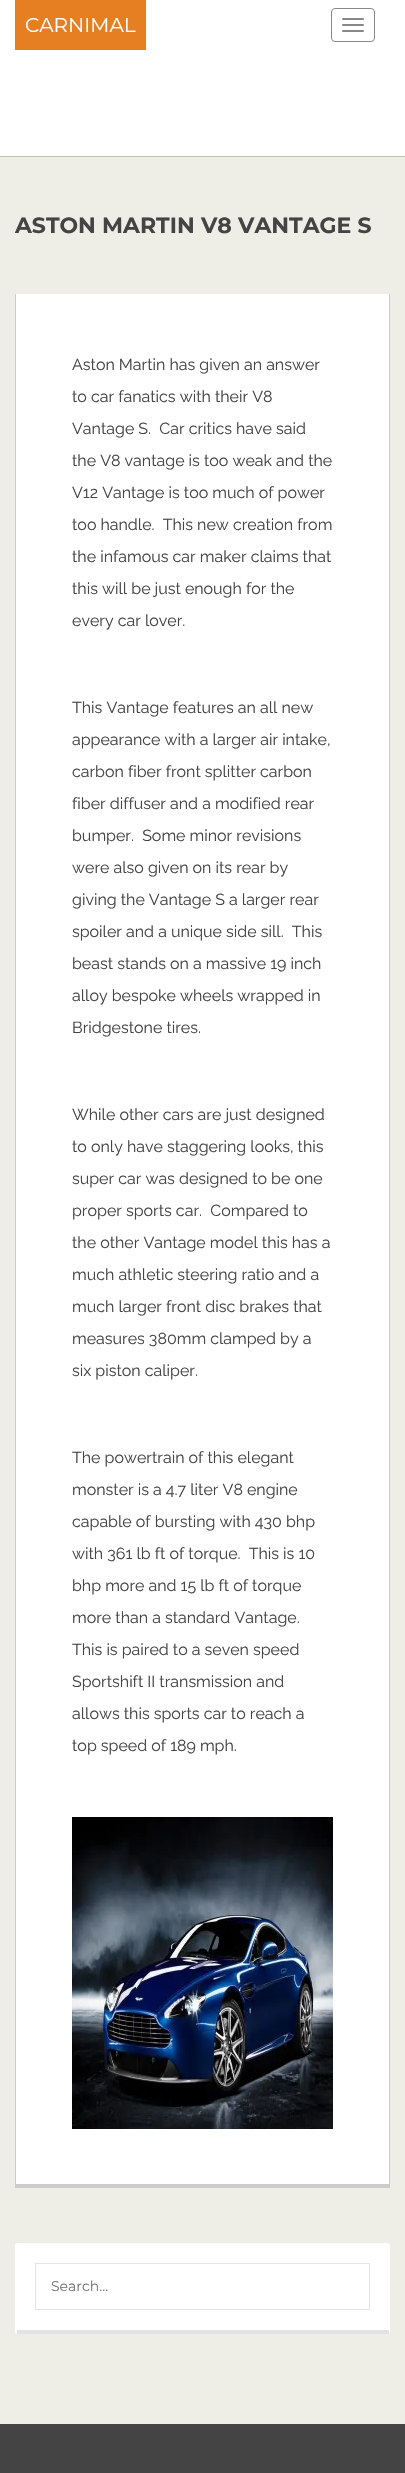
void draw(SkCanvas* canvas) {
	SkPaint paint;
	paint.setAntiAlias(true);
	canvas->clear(0xffffffff);
	paint.setColor(0xffc4c4ab);
	canvas->drawRect(SkRect::MakeXYWH(0, 156, 405, 1), paint);
	paint.setColor(0xffe67e22);
	canvas->drawRect(SkRect::MakeXYWH(15, 0, 131, 50), paint);
	SkFont f1(fontMgr->matchFamilyStyle("Montserrat", SkFontStyle::Normal()), 20);
	f1.setSubpixel(true);
	paint.setColor(0xffffffff);
	canvas->drawString("CARNIMAL", 25, 32, f1, paint);
	paint.setStroke(true);
	paint.setStrokeWidth(1);
	paint.setColor(0xff888888);
	canvas->drawRoundRect(SkRect::MakeXYWH(331.5, 8.5, 43, 33), 3.5, 3.5, paint);
	paint.setStroke(false);
	canvas->drawRoundRect(SkRect::MakeXYWH(342, 18, 22, 2), 1, 1, paint);
	canvas->drawRoundRect(SkRect::MakeXYWH(342, 24, 22, 2), 1, 1, paint);
	canvas->drawRoundRect(SkRect::MakeXYWH(342, 30, 22, 2), 1, 1, paint);
	paint.setColor(0xffeeeee7);
	canvas->drawRect(SkRect::MakeXYWH(0, 157, 405, 2267), paint);
	SkFont f2(fontMgr->matchFamilyStyle("Montserrat", SkFontStyle::Bold()), 22);
	f2.setSubpixel(true);
	paint.setColor(0xff444444);
	canvas->drawString("ASTON MARTIN V8 VANTAGE S", 15, 233, f2, paint);
	paint.setColor(0xffffffff);
	canvas->drawRect(SkRect::MakeXYWH(16, 294, 373, 1890), paint);
	paint.setColor(0xffcccccc);
	canvas->drawRect(SkRect::MakeXYWH(389, 294, 1, 1894), paint);
	canvas->drawRect(SkRect::MakeXYWH(15, 2184, 375, 4), paint);
	canvas->drawRect(SkRect::MakeXYWH(15, 294, 1, 1894), paint);
	SkFont f3(fontMgr->matchFamilyStyle("Raleway", SkFontStyle::Normal()), 16);
	f3.setSubpixel(true);
	paint.setColor(0xff444444);
	canvas->drawString("Aston Martin has given an answer", 72, 370, f3, paint);
	canvas->drawString("to car fanatics with their V8", 72, 402, f3, paint);
	canvas->drawString("Vantage S.  Car critics have said", 72, 434, f3, paint);
	canvas->drawString("the V8 vantage is too weak and the", 72, 466, f3, paint);
	canvas->drawString("V12 Vantage is too much of power", 72, 498, f3, paint);
	canvas->drawString("too handle.  This new creation from", 72, 530, f3, paint);
	canvas->drawString("the infamous car maker claims that", 72, 562, f3, paint);
	canvas->drawString("this will be just enough for the", 72, 594, f3, paint);
	canvas->drawString("every car lover.", 72, 626, f3, paint);
	canvas->drawString("This Vantage features an all new", 72, 713, f3, paint);
	canvas->drawString("appearance with a larger air intake,", 72, 745, f3, paint);
	canvas->drawString("carbon fiber front splitter carbon", 72, 777, f3, paint);
	canvas->drawString("fiber diffuser and a modified rear", 72, 809, f3, paint);
	canvas->drawString("bumper.  Some minor revisions", 72, 841, f3, paint);
	canvas->drawString("were also given on its rear by", 72, 873, f3, paint);
	canvas->drawString("giving the Vantage S a larger rear", 72, 905, f3, paint);
	canvas->drawString("spoiler and a unique side sill.  This", 72, 937, f3, paint);
	canvas->drawString("beast stands on a massive 19 inch", 72, 969, f3, paint);
	canvas->drawString("alloy bespoke wheels wrapped in", 72, 1001, f3, paint);
	canvas->drawString("Bridgestone tires.", 72, 1033, f3, paint);
	canvas->drawString("While other cars are just designed", 72, 1120, f3, paint);
	canvas->drawString("to only have staggering looks, this", 72, 1152, f3, paint);
	canvas->drawString("super car was designed to be one", 72, 1184, f3, paint);
	canvas->drawString("proper sports car.  Compared to", 72, 1216, f3, paint);
	canvas->drawString("the other Vantage model this has a", 72, 1248, f3, paint);
	canvas->drawString("much athletic steering ratio and a", 72, 1280, f3, paint);
	canvas->drawString("much larger front disc brakes that", 72, 1312, f3, paint);
	canvas->drawString("measures 380mm clamped by a", 72, 1344, f3, paint);
	canvas->drawString("six piston caliper.", 72, 1376, f3, paint);
	canvas->drawString("The powertrain of this elegant", 72, 1463, f3, paint);
	canvas->drawString("monster is a 4.7 liter V8 engine", 72, 1495, f3, paint);
	canvas->drawString("capable of bursting with 430 bhp", 72, 1527, f3, paint);
	canvas->drawString("with 361 lb ft of torque.  This is 10", 72, 1559, f3, paint);
	canvas->drawString("bhp more and 15 lb ft of torque", 72, 1591, f3, paint);
	canvas->drawString("more than a standard Vantage.", 72, 1623, f3, paint);
	canvas->drawString("This is paired to a seven speed", 72, 1655, f3, paint);
	canvas->drawString("Sportshift II transmission and", 72, 1687, f3, paint);
	canvas->drawString("allows this sports car to reach a", 72, 1719, f3, paint);
	canvas->drawString("top speed of 189 mph.", 72, 1751, f3, paint);
	canvas->drawImageRect(SkImages::DeferredFromEncodedData(SkData::MakeFromFileName("img1.png")), SkRect::MakeXYWH(72, 1817, 261, 312), SkSamplingOptions());
	paint.setColor(0xffffffff);
	canvas->drawRoundRect(SkRect::MakeXYWH(15, 2243, 375, 91), 3, 3, paint);
	paint.setColor(0xffe3e3e3);
	canvas->drawRect(SkRect::MakeXYWH(17, 2330, 372, 4), paint);
	paint.setStroke(true);
	paint.setColor(0xffe6e3e3);
	canvas->drawRect(SkRect::MakeXYWH(35.5, 2263.5, 334, 46), paint);
	SkFont f4(fontMgr->matchFamilyStyle("Montserrat", SkFontStyle::Normal()), 14);
	f4.setSubpixel(true);
	paint.setStroke(false);
	paint.setColor(0xff757575);
	canvas->drawString("Search...", 51, 2291, f4, paint);
	paint.setColor(0xff444444);
	canvas->drawRect(SkRect::MakeXYWH(0, 2424, 405, 49), paint);
}
